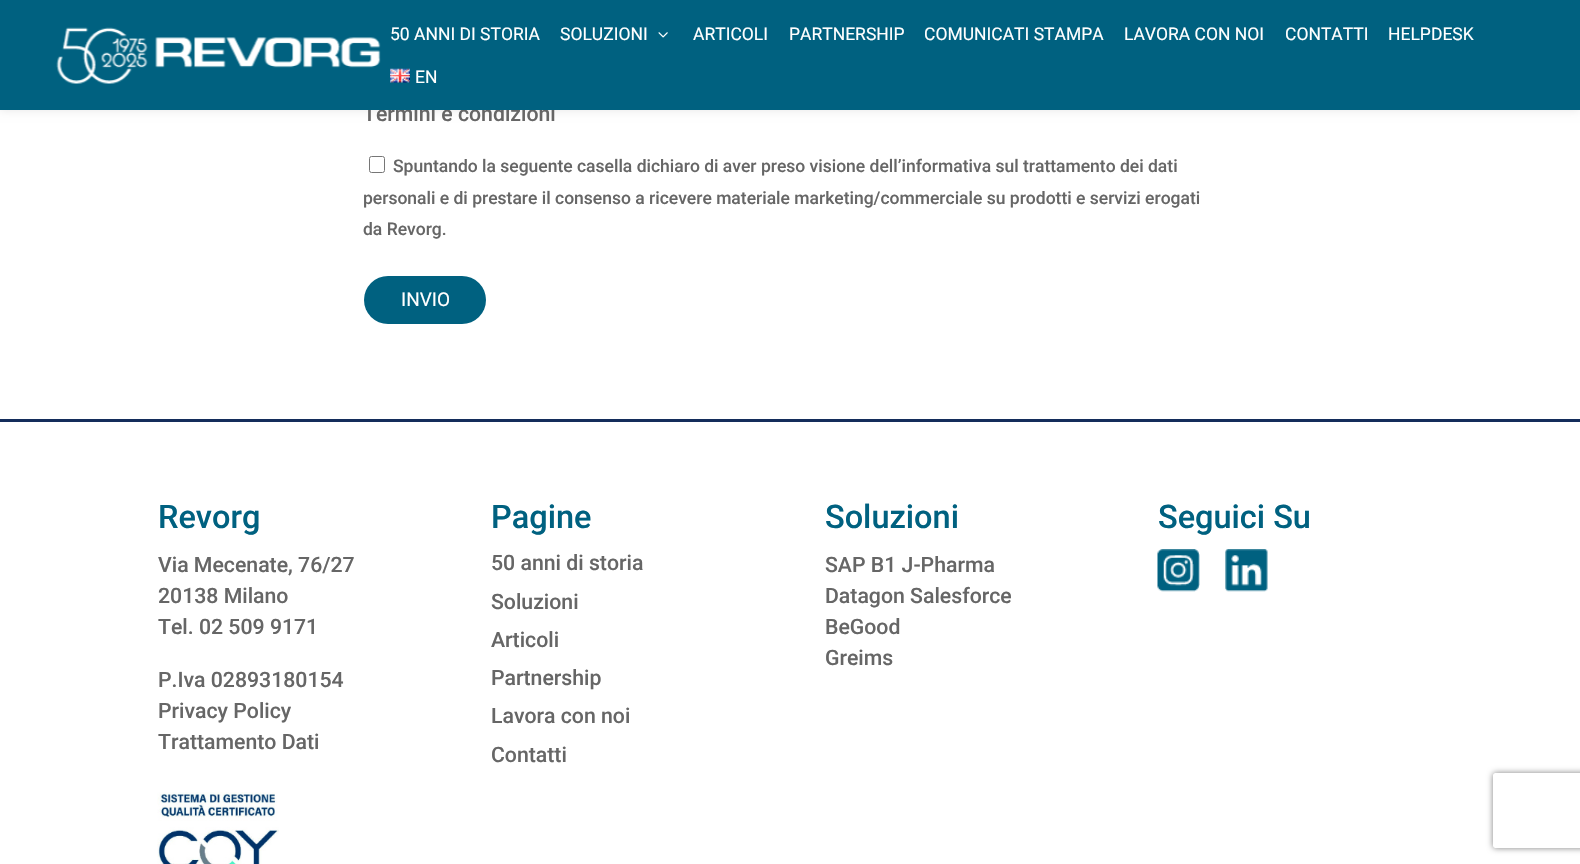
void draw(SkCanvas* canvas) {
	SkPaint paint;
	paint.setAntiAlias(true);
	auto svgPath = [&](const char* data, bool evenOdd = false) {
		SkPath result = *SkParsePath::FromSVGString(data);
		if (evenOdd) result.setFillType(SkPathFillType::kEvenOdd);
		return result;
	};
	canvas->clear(0xffffffff);
	paint.setColor(0x1a000000);
	paint.setMaskFilter(SkMaskFilter::MakeBlur(kNormal_SkBlurStyle, 4.5));
	canvas->drawRect(SkRect::MakeXYWH(0, 0, 1580, 110), paint);
	paint.setMaskFilter(nullptr);
	SkFont f1(fontMgr->matchFamilyStyle("Roboto", SkFontStyle(500, SkFontStyle::kNormal_Width, SkFontStyle::kUpright_Slant)), 21.25);
	f1.setSubpixel(true);
	paint.setColor(0xff666666);
	canvas->drawString("Termini e condizioni", 363, 121, f1, paint);
	paint.setColor(0xff006180);
	canvas->drawRect(SkRect::MakeXYWH(0, 0, 1580, 110), paint);
	canvas->drawImageRect(SkImages::DeferredFromEncodedData(SkData::MakeFromFileName("img1.png")), SkRect::MakeXYWH(56, 27, 325, 57), SkSamplingOptions());
	SkFont f2(fontMgr->matchFamilyStyle("Roboto", SkFontStyle::Normal()), 17.5);
	f2.setSubpixel(true);
	paint.setColor(0xffffffff);
	canvas->drawString("50 ANNI DI STORIA", 390, 40, f2, paint);
	canvas->drawString("SOLUZIONI", 560, 40, f2, paint);
	canvas->drawImageRect(SkImages::DeferredFromEncodedData(SkData::MakeFromFileName("img2.png")), SkRect::MakeXYWH(658, 32, 10, 6), SkSamplingOptions());
	canvas->drawString("ARTICOLI", 693, 40, f2, paint);
	canvas->drawString("PARTNERSHIP", 789, 40, f2, paint);
	canvas->drawString("COMUNICATI STAMPA", 924, 40, f2, paint);
	canvas->drawString("LAVORA CON NOI", 1124, 40, f2, paint);
	canvas->drawString("CONTATTI", 1285, 40, f2, paint);
	canvas->drawString("HELPDESK", 1388, 40, f2, paint);
	canvas->drawImageRect(SkImages::DeferredFromEncodedData(SkData::MakeFromFileName("img3.png")), SkRect::MakeXYWH(390, 68, 20, 15), SkSamplingOptions());
	canvas->drawString("EN", 415, 83, f2, paint);
	paint.setStroke(true);
	paint.setStrokeWidth(1);
	paint.setColor(0xff767676);
	canvas->drawRoundRect(SkRect::MakeXYWH(369.5, 156.5, 15, 16), 2, 2, paint);
	SkFont f3(fontMgr->matchFamilyStyle("Roboto", SkFontStyle(500, SkFontStyle::kNormal_Width, SkFontStyle::kUpright_Slant)), 17.5);
	f3.setSubpixel(true);
	paint.setStroke(false);
	paint.setColor(0xff666666);
	canvas->drawString("Spuntando la seguente casella dichiaro di aver preso visione dell’informativa sul trattamento dei dati", 393, 172, f3, paint);
	canvas->drawString("personali e di prestare il consenso a ricevere materiale marketing/commerciale su prodotti e servizi erogati", 363, 204, f3, paint);
	canvas->drawString("da Revorg.", 363, 235, f3, paint);
	paint.setColor(0xff006180);
	canvas->drawRoundRect(SkRect::MakeXYWH(364, 276, 122, 48), 24, 24, paint);
	SkFont f4(fontMgr->matchFamilyStyle("Roboto", SkFontStyle::Normal()), 19);
	f4.setSubpixel(true);
	paint.setColor(0xffffffff);
	canvas->drawString("INVIO", 401, 306, f4, paint);
	paint.setColor(0xff142d5b);
	canvas->drawRect(SkRect::MakeXYWH(0, 419, 1580, 3), paint);
	SkFont f5(fontMgr->matchFamilyStyle("Roboto", SkFontStyle(500, SkFontStyle::kNormal_Width, SkFontStyle::kUpright_Slant)), 32.5);
	f5.setSubpixel(true);
	paint.setColor(0xff006180);
	canvas->drawString("Revorg", 158, 528, f5, paint);
	paint.setColor(0xff666666);
	canvas->drawString("Via Mecenate, 76/27", 158, 572, f1, paint);
	canvas->drawString("20138 Milano", 158, 603, f1, paint);
	canvas->drawString("Tel. 02 509 9171", 158, 634, f1, paint);
	canvas->drawString("P.Iva 02893180154", 158, 687, f1, paint);
	canvas->drawString("Privacy Policy", 158, 718, f1, paint);
	canvas->drawString("Trattamento Dati", 158, 749, f1, paint);
	canvas->drawImageRect(SkImages::DeferredFromEncodedData(SkData::MakeFromFileName("img4.png")), SkRect::MakeXYWH(157, 792, 122, 72), SkSamplingOptions());
	paint.setColor(0xff006180);
	canvas->drawString("Pagine", 491, 528, f5, paint);
	paint.setColor(0xff666666);
	canvas->drawString("50 anni di storia", 491, 570, f1, paint);
	canvas->drawString("Soluzioni", 491, 609, f1, paint);
	canvas->drawString("Articoli", 491, 647, f1, paint);
	canvas->drawString("Partnership", 491, 685, f1, paint);
	canvas->drawString("Lavora con noi", 491, 723, f1, paint);
	canvas->drawString("Contatti", 491, 762, f1, paint);
	paint.setColor(0xff006180);
	canvas->drawString("Soluzioni", 825, 528, f5, paint);
	paint.setColor(0xff666666);
	canvas->drawString("SAP B1 J-Pharma", 825, 572, f1, paint);
	canvas->drawString("Datagon Salesforce", 825, 603, f1, paint);
	canvas->drawString("BeGood", 825, 634, f1, paint);
	canvas->drawString("Greims", 825, 665, f1, paint);
	paint.setColor(0xff006180);
	canvas->drawString("Seguici Su", 1158, 528, f5, paint);
	canvas->drawImageRect(SkImages::DeferredFromEncodedData(SkData::MakeFromFileName("img5.png")), SkRect::MakeXYWH(1157, 549, 43, 43), SkSamplingOptions());
	canvas->drawImageRect(SkImages::DeferredFromEncodedData(SkData::MakeFromFileName("img6.png")), SkRect::MakeXYWH(1225, 549, 43, 43), SkSamplingOptions());
	canvas->save();
	canvas->clipPath(svgPath("M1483 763H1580V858H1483ZM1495.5 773H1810.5C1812 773 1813 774 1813 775.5V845.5C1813 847 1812 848 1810.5 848H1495.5C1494 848 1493 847 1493 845.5V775.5C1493 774 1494 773 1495.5 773Z", true), true);
	paint.setColor(0xff808080);
	paint.setMaskFilter(SkMaskFilter::MakeBlur(kNormal_SkBlurStyle, 3));
	canvas->drawRoundRect(SkRect::MakeXYWH(1493, 773, 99, 75), 2.5, 2.5, paint);
	paint.setMaskFilter(nullptr);
	canvas->restore();
}
